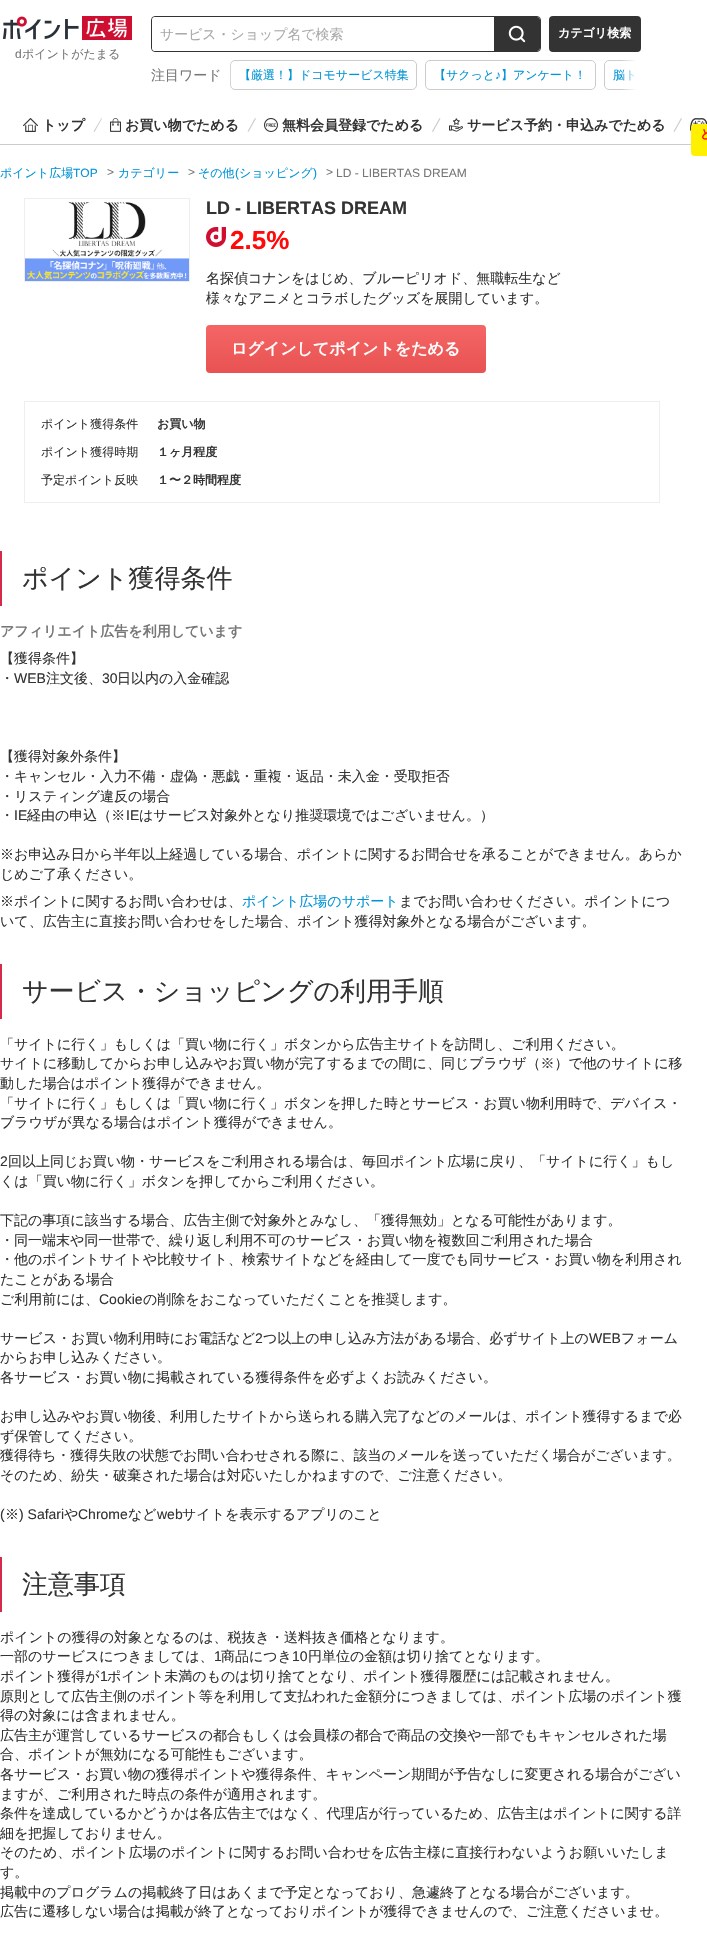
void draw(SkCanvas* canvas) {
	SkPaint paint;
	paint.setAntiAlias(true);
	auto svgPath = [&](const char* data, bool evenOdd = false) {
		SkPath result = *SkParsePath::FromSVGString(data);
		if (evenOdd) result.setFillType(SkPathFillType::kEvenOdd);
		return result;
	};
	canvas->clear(0xffffffff);
	paint.setColor(0xffcccccc);
	canvas->drawRect(SkRect::MakeXYWH(0, 144, 691, 1), paint);
	canvas->drawImageRect(SkImages::DeferredFromEncodedData(SkData::MakeFromFileName("img1.png")), SkRect::MakeXYWH(2, 16, 130, 24), SkSamplingOptions());
	SkFont f1(fontMgr->matchFamilyStyle("Liberation Sans", SkFontStyle::Normal()), 12);
	f1.setSubpixel(true);
	paint.setColor(0xff777777);
	canvas->drawString("d", 15, 58, f1, paint);
	SkFont f2(fontMgr->matchFamilyStyle("WenQuanYi Zen Hei", SkFontStyle(500, SkFontStyle::kNormal_Width, SkFontStyle::kUpright_Slant)), 12);
	f2.setSubpixel(true);
	canvas->drawString("ポイントがたまる", 22, 58, f2, paint);
	paint.setStroke(true);
	paint.setStrokeWidth(1);
	paint.setColor(0xff333333);
	canvas->drawRoundRect(SkRect::MakeXYWH(151.5, 16.5, 389, 35), 3.5, 3.5, paint);
	paint.setStroke(false);
	paint.setColor(0xffffffff);
	canvas->drawPath(svgPath("M155 17H494V51H155C153.5 51 152 49.5 152 48V20C152 18.5 153.5 17 155 17Z"), paint);
	SkFont f3(fontMgr->matchFamilyStyle("WenQuanYi Zen Hei", SkFontStyle(500, SkFontStyle::kNormal_Width, SkFontStyle::kUpright_Slant)), 13.9);
	f3.setSubpixel(true);
	paint.setColor(0xffa9a9a9);
	canvas->drawString("サービス・ショップ名で検索", 160, 39, f3, paint);
	paint.setColor(0xff333333);
	canvas->drawPath(svgPath("M494 17H537C538.5 17 540 18.5 540 20V48C540 49.5 538.5 51 537 51H494Z"), paint);
	canvas->drawImageRect(SkImages::DeferredFromEncodedData(SkData::MakeFromFileName("img2.png")), SkRect::MakeXYWH(508, 25, 18, 18), SkSamplingOptions());
	canvas->drawRoundRect(SkRect::MakeXYWH(549, 16, 92, 36), 4, 4, paint);
	SkFont f4(fontMgr->matchFamilyStyle("WenQuanYi Zen Hei", SkFontStyle::Bold()), 12);
	f4.setSubpixel(true);
	paint.setColor(0xffffffff);
	canvas->drawString("カテゴリ検索", 558, 37, f4, paint);
	SkFont f5(fontMgr->matchFamilyStyle("WenQuanYi Zen Hei", SkFontStyle(500, SkFontStyle::kNormal_Width, SkFontStyle::kUpright_Slant)), 14);
	f5.setSubpixel(true);
	paint.setColor(0xff777777);
	canvas->drawString("注目ワード", 151, 80, f5, paint);
	paint.setStroke(true);
	paint.setColor(0xffcccccc);
	canvas->drawRoundRect(SkRect::MakeXYWH(230.5, 60.5, 186, 29), 4.5, 4.5, paint);
	paint.setStroke(false);
	{
		const SkColor colors[] = {0x00ffffff, 0xffffffff, 0xffffffff};
		const float stops[] = {0.5, 0.9, 1};
		const SkPoint ends[] = {{242, 75}, {222, 75}};
		paint.setShader(SkGradientShader::MakeLinear(ends, colors, stops, 3, SkTileMode::kClamp));
		paint.setAlpha(255);
	}
	canvas->drawRect(SkRect::MakeXYWH(230, 62, 2, 26), paint);
	canvas->save();
	canvas->clipRect(SkRect::MakeXYWH(222, 52, 419, 46));
	paint.setStroke(true);
	paint.setShader(nullptr);
	paint.setColor(0xffcccccc);
	canvas->drawRoundRect(SkRect::MakeXYWH(604.5, 60.5, 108, 29), 4.5, 4.5, paint);
	canvas->restore();
	paint.setStroke(false);
	paint.setColor(0xff0194d7);
	canvas->drawString("脳ト", 613, 79, f2, paint);
	{
		const SkColor colors[] = {0x00ffffff, 0xffffffff, 0xffffffff};
		const float stops[] = {0, 0.8, 1};
		const SkPoint ends[] = {{621, 75}, {641, 75}};
		paint.setShader(SkGradientShader::MakeLinear(ends, colors, stops, 3, SkTileMode::kClamp));
		paint.setAlpha(255);
	}
	canvas->drawRect(SkRect::MakeXYWH(621, 60, 20, 30), paint);
	paint.setShader(nullptr);
	paint.setColor(0xff0194d7);
	canvas->drawString("【厳選！】ドコモサービス特集", 239, 79, f2, paint);
	paint.setStroke(true);
	paint.setColor(0xffcccccc);
	canvas->drawRoundRect(SkRect::MakeXYWH(425.5, 60.5, 170, 29), 4.5, 4.5, paint);
	paint.setStroke(false);
	paint.setColor(0xff0194d7);
	canvas->drawString("【サクっと", 434, 79, f2, paint);
	canvas->drawString("♪", 495, 79, f1, paint);
	canvas->drawString("】アンケート！", 501, 79, f2, paint);
	canvas->drawImageRect(SkImages::DeferredFromEncodedData(SkData::MakeFromFileName("img3.png")), SkRect::MakeXYWH(23, 118, 15, 14), SkSamplingOptions());
	SkFont f6(fontMgr->matchFamilyStyle("WenQuanYi Zen Hei", SkFontStyle::Bold()), 14);
	f6.setSubpixel(true);
	paint.setColor(0xff333333);
	canvas->drawString("トップ", 42, 130, f6, paint);
	paint.setColor(0xffcccccc);
	canvas->drawPath(svgPath("M101.5 118L102 118.5L94.5 132L93.5 131.5Z"), paint);
	canvas->drawImageRect(SkImages::DeferredFromEncodedData(SkData::MakeFromFileName("img4.png")), SkRect::MakeXYWH(110, 118, 11, 14), SkSamplingOptions());
	paint.setColor(0xff333333);
	canvas->drawString("お買い物でためる", 125, 130, f6, paint);
	paint.setColor(0xffcccccc);
	canvas->drawPath(svgPath("M255 118L256 118.5L248.5 132L247.5 131.5Z"), paint);
	canvas->drawImageRect(SkImages::DeferredFromEncodedData(SkData::MakeFromFileName("img5.png")), SkRect::MakeXYWH(264, 118, 14, 14), SkSamplingOptions());
	paint.setColor(0xff333333);
	canvas->drawString("無料会員登録でためる", 282, 130, f6, paint);
	paint.setColor(0xffcccccc);
	canvas->drawPath(svgPath("M439.5 118L440.5 118.5L433 132L432 131.5Z"), paint);
	canvas->drawImageRect(SkImages::DeferredFromEncodedData(SkData::MakeFromFileName("img6.png")), SkRect::MakeXYWH(449, 118, 14, 14), SkSamplingOptions());
	paint.setColor(0xff333333);
	canvas->drawString("サービス予約・申込みでためる", 467, 130, f6, paint);
	paint.setColor(0xffcccccc);
	canvas->drawPath(svgPath("M681 118L682 118.5L674.5 132L673.5 131.5Z"), paint);
	canvas->drawImageRect(SkImages::DeferredFromEncodedData(SkData::MakeFromFileName("img7.png")), SkRect::MakeXYWH(690, 118, 17, 14), SkSamplingOptions());
	paint.setColor(0xfffff000);
	canvas->drawRoundRect(SkRect::MakeXYWH(691, 124, 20, 32), 4, 4, paint);
	paint.setColor(0xffff0909);
	canvas->drawString("と", 700, 138, f4, paint);
	paint.setColor(0xff0194d7);
	canvas->drawString("ポイント広場", 0, 177, f2, paint);
	canvas->drawString("TOP", 73, 177, f1, paint);
	paint.setColor(0xff777777);
	canvas->drawString(">", 107, 176, f1, paint);
	paint.setColor(0xff0194d7);
	canvas->drawString("カテゴリー", 118, 177, f2, paint);
	paint.setColor(0xff777777);
	canvas->drawString(">", 188, 176, f1, paint);
	paint.setColor(0xff0194d7);
	canvas->drawString("その他", 198, 177, f2, paint);
	canvas->drawString("(", 235, 177, f1, paint);
	canvas->drawString("ショッピング", 239, 177, f2, paint);
	canvas->drawString(")", 313, 177, f1, paint);
	paint.setColor(0xff777777);
	canvas->drawString(">", 326, 176, f1, paint);
	canvas->drawString("LD - LIBERTAS DREAM", 336, 177, f1, paint);
	paint.setStroke(true);
	paint.setColor(0xffeeeeee);
	canvas->drawRect(SkRect::MakeXYWH(24.5, 198.5, 165, 83), paint);
	canvas->drawImageRect(SkImages::DeferredFromEncodedData(SkData::MakeFromFileName("img8.png")), SkRect::MakeXYWH(25, 202, 164, 79), SkSamplingOptions());
	SkFont f7(fontMgr->matchFamilyStyle("Liberation Sans", SkFontStyle::Bold()), 18);
	f7.setSubpixel(true);
	paint.setStroke(false);
	paint.setColor(0xff333333);
	canvas->drawString("LD - LIBERTAS DREAM", 206, 214, f7, paint);
	canvas->drawImageRect(SkImages::DeferredFromEncodedData(SkData::MakeFromFileName("img9.png")), SkRect::MakeXYWH(206, 227, 20, 20), SkSamplingOptions());
	SkFont f8(fontMgr->matchFamilyStyle("Liberation Sans", SkFontStyle::Bold()), 26);
	f8.setSubpixel(true);
	paint.setColor(0xffff0909);
	canvas->drawString("2.5%", 230, 249, f8, paint);
	paint.setColor(0xff333333);
	canvas->drawString("名探偵コナンをはじめ、ブルーピリオド、無職転生など", 206, 283, f5, paint);
	canvas->drawString("様々なアニメとコラボしたグッズを展開しています。", 206, 303, f5, paint);
	{
		const SkColor colors[] = {0x00ffffff, 0xffffffff};
		const float stops[] = {0, 0.8};
		const SkPoint ends[] = {{433, 305}, {433, 329}};
		paint.setShader(SkGradientShader::MakeLinear(ends, colors, stops, 2, SkTileMode::kClamp));
		paint.setAlpha(255);
	}
	canvas->drawRect(SkRect::MakeXYWH(240, 305, 1, 1), paint);
	{
		const SkColor colors[] = {0xfff46464, 0xffe85252};
		const float stops[] = {0.1, 1};
		const SkPoint ends[] = {{346, 325}, {346, 373}};
		paint.setShader(SkGradientShader::MakeLinear(ends, colors, stops, 2, SkTileMode::kClamp));
		paint.setAlpha(255);
	}
	canvas->drawRoundRect(SkRect::MakeXYWH(206, 325, 280, 48), 4, 4, paint);
	SkFont f9(fontMgr->matchFamilyStyle("WenQuanYi Zen Hei", SkFontStyle::Bold()), 16);
	f9.setSubpixel(true);
	paint.setShader(nullptr);
	paint.setColor(0xffffffff);
	canvas->drawString("ログインしてポイントをためる", 231, 354, f9, paint);
	paint.setStroke(true);
	paint.setColor(0xffeeeeee);
	canvas->drawRect(SkRect::MakeXYWH(24.5, 401.5, 635, 101), paint);
	paint.setStroke(false);
	paint.setColor(0xff333333);
	canvas->drawString("ポイント獲得条件", 41, 428, f2, paint);
	canvas->drawString("お買い物", 157, 428, f4, paint);
	canvas->drawString("ポイント獲得時期", 41, 456, f2, paint);
	canvas->drawString("１ヶ月程度", 157, 456, f4, paint);
	canvas->drawString("予定ポイント反映", 41, 484, f2, paint);
	canvas->drawString("１〜２時間程度", 157, 484, f4, paint);
	paint.setColor(0xffd52b4a);
	canvas->drawRect(SkRect::MakeXYWH(0, 551, 2, 55), paint);
	SkFont f10(fontMgr->matchFamilyStyle("WenQuanYi Zen Hei", SkFontStyle(500, SkFontStyle::kNormal_Width, SkFontStyle::kUpright_Slant)), 26);
	f10.setSubpixel(true);
	paint.setColor(0xff333333);
	canvas->drawString("ポイント獲得条件", 22, 587, f10, paint);
	paint.setColor(0xff777777);
	canvas->drawString("アフィリエイト広告を利用しています", 0, 636, f6, paint);
	paint.setColor(0xff333333);
	canvas->drawString("【獲得条件】", 0, 663, f5, paint);
	canvas->drawString("・", 0, 683, f5, paint);
	SkFont f11(fontMgr->matchFamilyStyle("Liberation Sans", SkFontStyle::Normal()), 14);
	f11.setSubpixel(true);
	canvas->drawString("WEB", 14, 683, f11, paint);
	canvas->drawString("注文後、", 46, 683, f5, paint);
	canvas->drawString("30", 102, 683, f11, paint);
	canvas->drawString("日以内の入金確認", 117, 683, f5, paint);
	canvas->drawString("【獲得対象外条件】", 0, 761, f5, paint);
	canvas->drawString("・キャンセル・入力不備・虚偽・悪戯・重複・返品・未入金・受取拒否", 0, 781, f5, paint);
	canvas->drawString("・リスティング違反の場合", 0, 801, f5, paint);
	canvas->drawString("・", 0, 820, f5, paint);
	canvas->drawString("IE", 14, 820, f11, paint);
	canvas->drawString("経由の申込（※", 27, 820, f5, paint);
	canvas->drawString("IE", 126, 820, f11, paint);
	canvas->drawString("はサービス対象外となり推奨環境ではございません。）", 139, 820, f5, paint);
	canvas->drawString("※お申込み日から半年以上経過している場合、ポイントに関するお問合せを承ることができません。あらか", 0, 859, f5, paint);
	canvas->drawString("じめご了承ください。", 0, 879, f5, paint);
	canvas->drawString("※ポイントに関するお問い合わせは、", 0, 906, f5, paint);
	paint.setColor(0xff0194d7);
	canvas->drawString("ポイント広場のサポート", 242, 906, f5, paint);
	paint.setColor(0xff333333);
	canvas->drawString("までお問い合わせください。ポイントにつ", 399, 906, f5, paint);
	canvas->drawString("いて、広告主に直接お問い合わせをした場合、ポイント獲得対象外となる場合がございます。", 0, 926, f5, paint);
	paint.setColor(0xffd52b4a);
	canvas->drawRect(SkRect::MakeXYWH(0, 964, 2, 55), paint);
	paint.setColor(0xff333333);
	canvas->drawString("サービス・ショッピングの利用手順", 22, 1000, f10, paint);
	canvas->drawString("「サイトに行く」もしくは「買い物に行く」ボタンから広告主サイトを訪問し、ご利用ください。", 0, 1049, f5, paint);
	canvas->drawString("サイトに移動してからお申し込みやお買い物が完了するまでの間に、同じブラウザ（※）で他のサイトに移", 0, 1068, f5, paint);
	canvas->drawString("動した場合はポイント獲得ができません。", 0, 1088, f5, paint);
	canvas->drawString("「サイトに行く」もしくは「買い物に行く」ボタンを押した時とサービス・お買い物利用時で、デバイス・", 0, 1108, f5, paint);
	canvas->drawString("ブラウザが異なる場合はポイント獲得ができません。", 0, 1127, f5, paint);
	canvas->drawString("2", 0, 1166, f11, paint);
	canvas->drawString("回以上同じお買い物・サービスをご利用される場合は、毎回ポイント広場に戻り、「サイトに行く」もし", 8, 1166, f5, paint);
	canvas->drawString("くは「買い物に行く」ボタンを押してからご利用ください。", 0, 1186, f5, paint);
	canvas->drawString("下記の事項に該当する場合、広告主側で対象外とみなし、「獲得無効」となる可能性があります。", 0, 1225, f5, paint);
	canvas->drawString("・同一端末や同一世帯で、繰り返し利用不可のサービス・お買い物を複数回ご利用された場合", 0, 1245, f5, paint);
	canvas->drawString("・他のポイントサイトや比較サイト、検索サイトなどを経由して一度でも同サービス・お買い物を利用され", 0, 1264, f5, paint);
	canvas->drawString("たことがある場合", 0, 1284, f5, paint);
	canvas->drawString("ご利用前には、", 0, 1304, f5, paint);
	canvas->drawString("Cookie", 99, 1304, f11, paint);
	canvas->drawString("の削除をおこなっていただくことを推奨します。", 143, 1304, f5, paint);
	canvas->drawString("サービス・お買い物利用時にお電話など", 0, 1343, f5, paint);
	canvas->drawString("2", 255, 1343, f11, paint);
	canvas->drawString("つ以上の申し込み方法がある場合、必ずサイト上の", 263, 1343, f5, paint);
	canvas->drawString("WEB", 589, 1343, f11, paint);
	canvas->drawString("フォーム", 621, 1343, f5, paint);
	canvas->drawString("からお申し込みください。", 0, 1362, f5, paint);
	canvas->drawString("各サービス・お買い物に掲載されている獲得条件を必ずよくお読みください。", 0, 1382, f5, paint);
	canvas->drawString("お申し込みやお買い物後、利用したサイトから送られる購入完了などのメールは、ポイント獲得するまで必", 0, 1421, f5, paint);
	canvas->drawString("ず保管してください。", 0, 1441, f5, paint);
	canvas->drawString("獲得待ち・獲得失敗の状態でお問い合わせされる際に、該当のメールを送っていただく場合がございます。", 0, 1460, f5, paint);
	canvas->drawString("そのため、紛失・破棄された場合は対応いたしかねますので、ご注意ください。", 0, 1480, f5, paint);
	canvas->drawString("(", 0, 1519, f11, paint);
	canvas->drawString("※", 5, 1519, f5, paint);
	canvas->drawString(") Safari", 19, 1519, f11, paint);
	canvas->drawString("や", 64, 1519, f5, paint);
	canvas->drawString("Chrome", 78, 1519, f11, paint);
	canvas->drawString("など", 128, 1519, f5, paint);
	canvas->drawString("web", 157, 1519, f11, paint);
	canvas->drawString("サイトを表示するアプリのこと", 182, 1519, f5, paint);
	paint.setColor(0xffd52b4a);
	canvas->drawRect(SkRect::MakeXYWH(0, 1557, 2, 55), paint);
	paint.setColor(0xff333333);
	canvas->drawString("注意事項", 22, 1593, f10, paint);
	canvas->drawString("ポイントの獲得の対象となるのは、税抜き・送料抜き価格となります。", 0, 1642, f5, paint);
	canvas->drawString("一部のサービスにつきましては、", 0, 1661, f5, paint);
	canvas->drawString("1", 214, 1661, f11, paint);
	canvas->drawString("商品につき", 221, 1661, f5, paint);
	canvas->drawString("10", 292, 1661, f11, paint);
	canvas->drawString("円単位の金額は切り捨てとなります。", 308, 1661, f5, paint);
	canvas->drawString("ポイント獲得が", 0, 1681, f5, paint);
	canvas->drawString("1", 100, 1681, f11, paint);
	canvas->drawString("ポイント未満のものは切り捨てとなり、ポイント獲得履歴には記載されません。", 107, 1681, f5, paint);
	canvas->drawString("原則として広告主側のポイント等を利用して支払われた金額分につきましては、ポイント広場のポイント獲", 0, 1701, f5, paint);
	canvas->drawString("得の対象には含まれません。", 0, 1720, f5, paint);
	canvas->drawString("広告主が運営しているサービスの都合もしくは会員様の都合で商品の交換や一部でもキャンセルされた場", 0, 1740, f5, paint);
	canvas->drawString("合、ポイントが無効になる可能性もございます。", 0, 1759, f5, paint);
	canvas->drawString("各サービス・お買い物の獲得ポイントや獲得条件、キャンペーン期間が予告なしに変更される場合がござい", 0, 1779, f5, paint);
	canvas->drawString("ますが、ご利用された時点の条件が適用されます。", 0, 1799, f5, paint);
	canvas->drawString("条件を達成しているかどうかは各広告主ではなく、代理店が行っているため、広告主はポイントに関する詳", 0, 1818, f5, paint);
	canvas->drawString("細を把握しておりません。", 0, 1838, f5, paint);
	canvas->drawString("そのため、ポイント広場のポイントに関するお問い合わせを広告主様に直接行わないようお願いいたしま", 0, 1857, f5, paint);
	canvas->drawString("す。", 0, 1877, f5, paint);
	canvas->drawString("掲載中のプログラムの掲載終了日はあくまで予定となっており、急遽終了となる場合がございます。", 0, 1897, f5, paint);
	canvas->drawString("広告に遷移しない場合は掲載が終了となっておりポイントが獲得できませんので、ご注意くださいませ。", 0, 1916, f5, paint);
}
